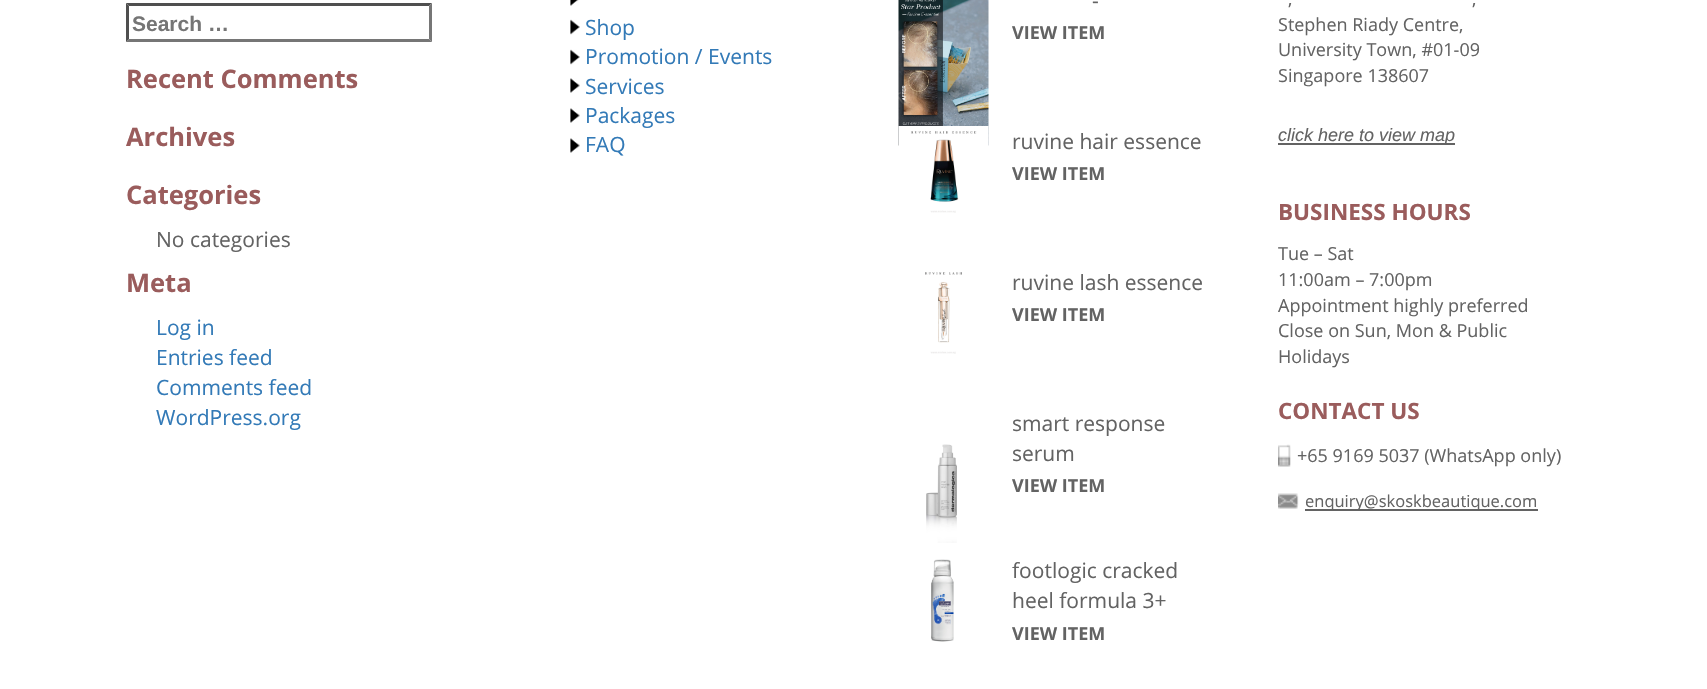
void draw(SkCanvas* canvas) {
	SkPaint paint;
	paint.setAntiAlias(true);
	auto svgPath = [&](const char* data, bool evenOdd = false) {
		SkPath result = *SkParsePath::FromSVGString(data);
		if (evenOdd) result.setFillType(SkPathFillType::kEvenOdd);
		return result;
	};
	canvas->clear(0xffffffff);
	paint.setColor(0xff4f4f4f);
	canvas->drawPath(svgPath("M126 3H432L429 6H129Z"), paint);
	paint.setColor(0xff767676);
	canvas->drawPath(svgPath("M432 3V42L429 39V6Z"), paint);
	canvas->drawPath(svgPath("M432 42H126L129 39H429Z"), paint);
	paint.setColor(0xff4f4f4f);
	canvas->drawPath(svgPath("M126 42V3L129 6V39Z"), paint);
	SkFont f1(fontMgr->matchFamilyStyle("Liberation Sans", SkFontStyle::Bold()), 21);
	f1.setSubpixel(true);
	paint.setColor(0xff757575);
	canvas->drawString("Search …", 132, 31, f1, paint);
	SkFont f2(fontMgr->matchFamilyStyle("Open Sans", SkFontStyle::Bold()), 25.5);
	f2.setSubpixel(true);
	paint.setColor(0xff9a5c5c);
	canvas->drawString("Recent Comments", 126, 88, f2, paint);
	canvas->drawString("Archives", 126, 146, f2, paint);
	canvas->drawString("Categories", 126, 204, f2, paint);
	SkFont f3(fontMgr->matchFamilyStyle("Open Sans", SkFontStyle::Normal()), 21);
	f3.setSubpixel(true);
	paint.setColor(0xff636363);
	canvas->drawString("No categories", 156, 247, f3, paint);
	paint.setColor(0xff9a5c5c);
	canvas->drawString("Meta", 126, 292, f2, paint);
	paint.setColor(0xff337ab7);
	canvas->drawString("Log in", 156, 335, f3, paint);
	canvas->drawString("Entries feed", 156, 365, f3, paint);
	canvas->drawString("Comments feed", 156, 395, f3, paint);
	canvas->drawString("WordPress.org", 156, 425, f3, paint);
	canvas->drawImageRect(SkImages::DeferredFromEncodedData(SkData::MakeFromFileName("img1.png")), SkRect::MakeXYWH(570, 0, 9, 6), SkSamplingOptions());
	canvas->drawImageRect(SkImages::DeferredFromEncodedData(SkData::MakeFromFileName("img2.png")), SkRect::MakeXYWH(570, 19, 10, 16), SkSamplingOptions());
	canvas->drawString("Shop", 585, 35, f3, paint);
	canvas->drawImageRect(SkImages::DeferredFromEncodedData(SkData::MakeFromFileName("img2.png")), SkRect::MakeXYWH(570, 49, 10, 16), SkSamplingOptions());
	canvas->drawString("Promotion / Events", 585, 64, f3, paint);
	canvas->drawImageRect(SkImages::DeferredFromEncodedData(SkData::MakeFromFileName("img3.png")), SkRect::MakeXYWH(570, 78, 10, 15), SkSamplingOptions());
	canvas->drawString("Services", 585, 94, f3, paint);
	canvas->drawImageRect(SkImages::DeferredFromEncodedData(SkData::MakeFromFileName("img3.png")), SkRect::MakeXYWH(570, 108, 10, 15), SkSamplingOptions());
	canvas->drawString("Packages", 585, 123, f3, paint);
	canvas->drawImageRect(SkImages::DeferredFromEncodedData(SkData::MakeFromFileName("img3.png")), SkRect::MakeXYWH(570, 138, 10, 15), SkSamplingOptions());
	canvas->drawString("FAQ", 585, 152, f3, paint);
	canvas->drawImageRect(SkImages::DeferredFromEncodedData(SkData::MakeFromFileName("img4.png")), SkRect::MakeXYWH(898, 0, 91, 146), SkSamplingOptions());
	paint.setColor(0xff636363);
	canvas->drawString("-", 1092, 8, f3, paint);
	SkFont f4(fontMgr->matchFamilyStyle("Open Sans", SkFontStyle::Bold()), 18);
	f4.setSubpixel(true);
	canvas->drawString("VIEW ITEM", 1012, 39, f4, paint);
	canvas->drawImageRect(SkImages::DeferredFromEncodedData(SkData::MakeFromFileName("img5.png")), SkRect::MakeXYWH(898, 126, 91, 87), SkSamplingOptions());
	canvas->drawString("ruvine hair essence", 1012, 149, f3, paint);
	canvas->drawString("VIEW ITEM", 1012, 180, f4, paint);
	canvas->drawImageRect(SkImages::DeferredFromEncodedData(SkData::MakeFromFileName("img6.png")), SkRect::MakeXYWH(925, 272, 37, 82), SkSamplingOptions());
	canvas->drawString("ruvine lash essence", 1012, 290, f3, paint);
	canvas->drawString("VIEW ITEM", 1012, 321, f4, paint);
	canvas->drawImageRect(SkImages::DeferredFromEncodedData(SkData::MakeFromFileName("img7.png")), SkRect::MakeXYWH(926, 444, 31, 99), SkSamplingOptions());
	canvas->drawString("smart response", 1012, 431, f3, paint);
	canvas->drawString("serum", 1012, 461, f3, paint);
	canvas->drawString("VIEW ITEM", 1012, 492, f4, paint);
	canvas->drawImageRect(SkImages::DeferredFromEncodedData(SkData::MakeFromFileName("img8.png")), SkRect::MakeXYWH(931, 559, 23, 83), SkSamplingOptions());
	canvas->drawString("footlogic cracked", 1012, 578, f3, paint);
	canvas->drawString("heel formula 3+", 1012, 608, f3, paint);
	canvas->drawString("VIEW ITEM", 1012, 640, f4, paint);
	SkFont f5(fontMgr->matchFamilyStyle("Open Sans", SkFontStyle::Normal()), 18);
	f5.setSubpixel(true);
	canvas->drawString(",", 1288, 5, f5, paint);
	canvas->drawString(",", 1472, 5, f5, paint);
	canvas->drawString("Stephen Riady Centre,", 1278, 31, f5, paint);
	canvas->drawString("University Town, #01-09", 1278, 56, f5, paint);
	canvas->drawString("Singapore 138607", 1278, 82, f5, paint);
	canvas->drawRect(SkRect::MakeXYWH(1278, 143, 177, 2), paint);
	SkFont f6(fontMgr->matchFamilyStyle("Liberation Sans", SkFontStyle::Italic()), 18);
	f6.setSubpixel(true);
	canvas->drawString("click here to view map", 1278, 141, f6, paint);
	SkFont f7(fontMgr->matchFamilyStyle("Open Sans", SkFontStyle::Bold()), 22.5);
	f7.setSubpixel(true);
	paint.setColor(0xff9a5c5c);
	canvas->drawString("BUSINESS HOURS", 1278, 220, f7, paint);
	paint.setColor(0xff636363);
	canvas->drawString("Tue – Sat", 1278, 260, f5, paint);
	canvas->drawString("11:00am – 7:00pm", 1278, 286, f5, paint);
	canvas->drawString("Appointment highly preferred", 1278, 312, f5, paint);
	canvas->drawString("Close on Sun, Mon & Public", 1278, 337, f5, paint);
	canvas->drawString("Holidays", 1278, 363, f5, paint);
	paint.setColor(0xff9a5c5c);
	canvas->drawString("CONTACT US", 1278, 419, f7, paint);
	canvas->drawImageRect(SkImages::DeferredFromEncodedData(SkData::MakeFromFileName("img9.png")), SkRect::MakeXYWH(1278, 444, 13, 23), SkSamplingOptions());
	paint.setColor(0xff636363);
	canvas->drawString("+65 9169 5037 (WhatsApp only)", 1297, 462, f5, paint);
	canvas->drawImageRect(SkImages::DeferredFromEncodedData(SkData::MakeFromFileName("img10.png")), SkRect::MakeXYWH(1278, 493, 21, 16), SkSamplingOptions());
	canvas->drawRect(SkRect::MakeXYWH(1305, 509, 233, 2), paint);
	SkFont f8(fontMgr->matchFamilyStyle("Open Sans", SkFontStyle::Normal()), 16.5);
	f8.setSubpixel(true);
	canvas->drawString("enquiry@skoskbeautique.com", 1305, 507, f8, paint);
}
